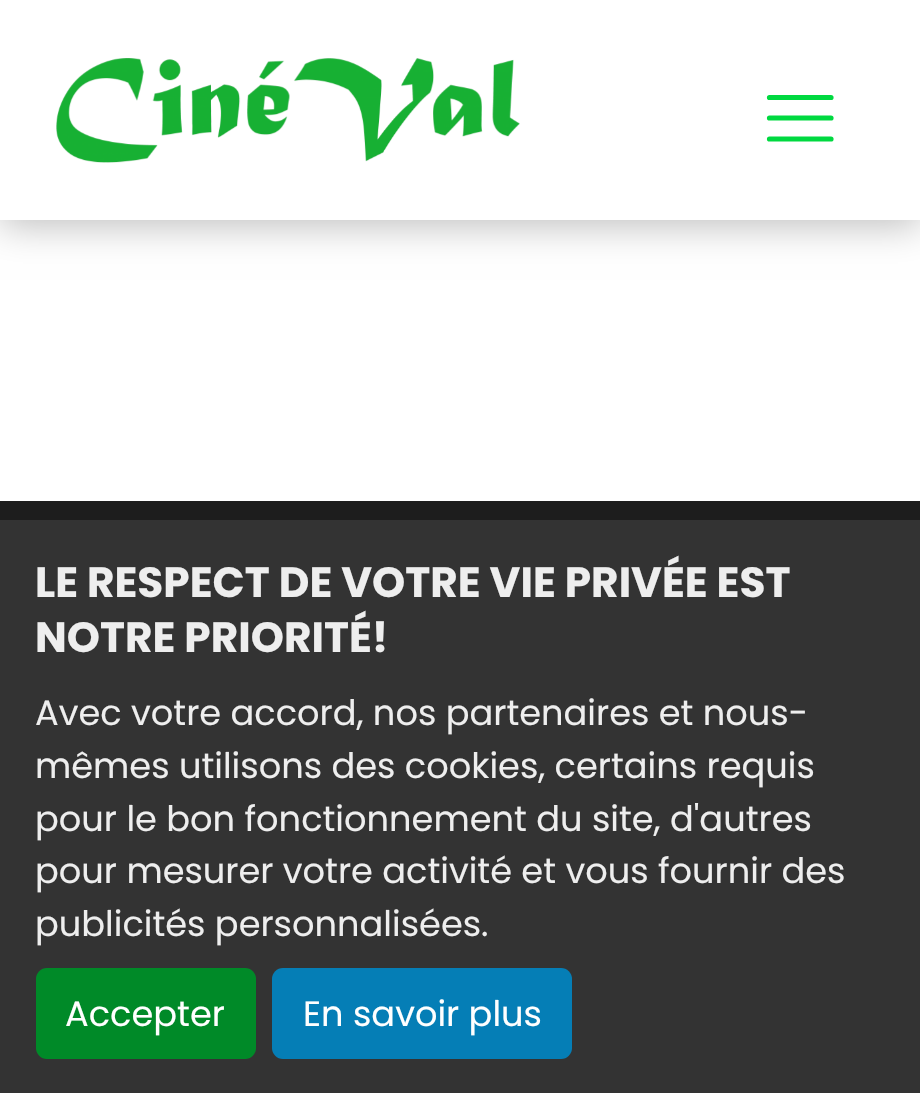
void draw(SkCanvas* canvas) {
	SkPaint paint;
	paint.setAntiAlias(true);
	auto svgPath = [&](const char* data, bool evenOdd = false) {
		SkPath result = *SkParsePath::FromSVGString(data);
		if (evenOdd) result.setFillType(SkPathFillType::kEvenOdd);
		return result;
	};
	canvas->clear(0xffffffff);
	paint.setColor(0x40000000);
	paint.setMaskFilter(SkMaskFilter::MakeBlur(kNormal_SkBlurStyle, 18));
	canvas->drawRect(SkRect::MakeXYWH(0, 6, 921, 220), paint);
	paint.setMaskFilter(nullptr);
	paint.setColor(0xffffffff);
	canvas->drawRect(SkRect::MakeXYWH(0, 0, 920, 220), paint);
	canvas->drawImageRect(SkImages::DeferredFromEncodedData(SkData::MakeFromFileName("img1.png")), SkRect::MakeXYWH(56, 58, 464, 105), SkSamplingOptions());
	paint.setStroke(true);
	paint.setStrokeWidth(5.2);
	paint.setStrokeCap(SkPaint::kRound_Cap);
	paint.setColor(0xff00d940);
	canvas->drawPath(svgPath("M769.5 97.5H831M769.5 118H831M769.5 139H831"), paint);
	paint.setStroke(false);
	paint.setColor(0xff1d1d1d);
	canvas->drawRect(SkRect::MakeXYWH(0, 501, 920, 19), paint);
	paint.setColor(0xff333333);
	canvas->drawRect(SkRect::MakeXYWH(0, 520, 920, 573), paint);
	SkFont f1(fontMgr->matchFamilyStyle("Poppins", SkFontStyle::Bold()), 42.25);
	f1.setSubpixel(true);
	paint.setColor(0xffeeeeee);
	canvas->drawString("LE RESPECT DE VOTRE VIE PRIVÉE EST", 35, 597, f1, paint);
	canvas->drawString("NOTRE PRIORITÉ!", 35, 652, f1, paint);
	SkFont f2(fontMgr->matchFamilyStyle("Poppins", SkFontStyle::Normal()), 35.2);
	f2.setSubpixel(true);
	canvas->drawString("Avec votre accord, nos partenaires et nous-", 35, 725, f2, paint);
	canvas->drawString("mêmes utilisons des cookies, certains requis", 35, 778, f2, paint);
	canvas->drawString("pour le bon fonctionnement du site, d'autres", 35, 831, f2, paint);
	canvas->drawString("pour mesurer votre activité et vous fournir des", 35, 883, f2, paint);
	canvas->drawString("publicités personnalisées.", 35, 936, f2, paint);
	paint.setColor(0xff008a28);
	canvas->drawRoundRect(SkRect::MakeXYWH(36, 968, 220, 91), 11, 11, paint);
	paint.setColor(0xffffffff);
	canvas->drawString("Accepter", 65, 1026, f2, paint);
	paint.setColor(0xff057eb6);
	canvas->drawRoundRect(SkRect::MakeXYWH(272, 968, 300, 91), 11, 11, paint);
	paint.setColor(0xffffffff);
	canvas->drawString("En savoir plus", 303, 1026, f2, paint);
}
